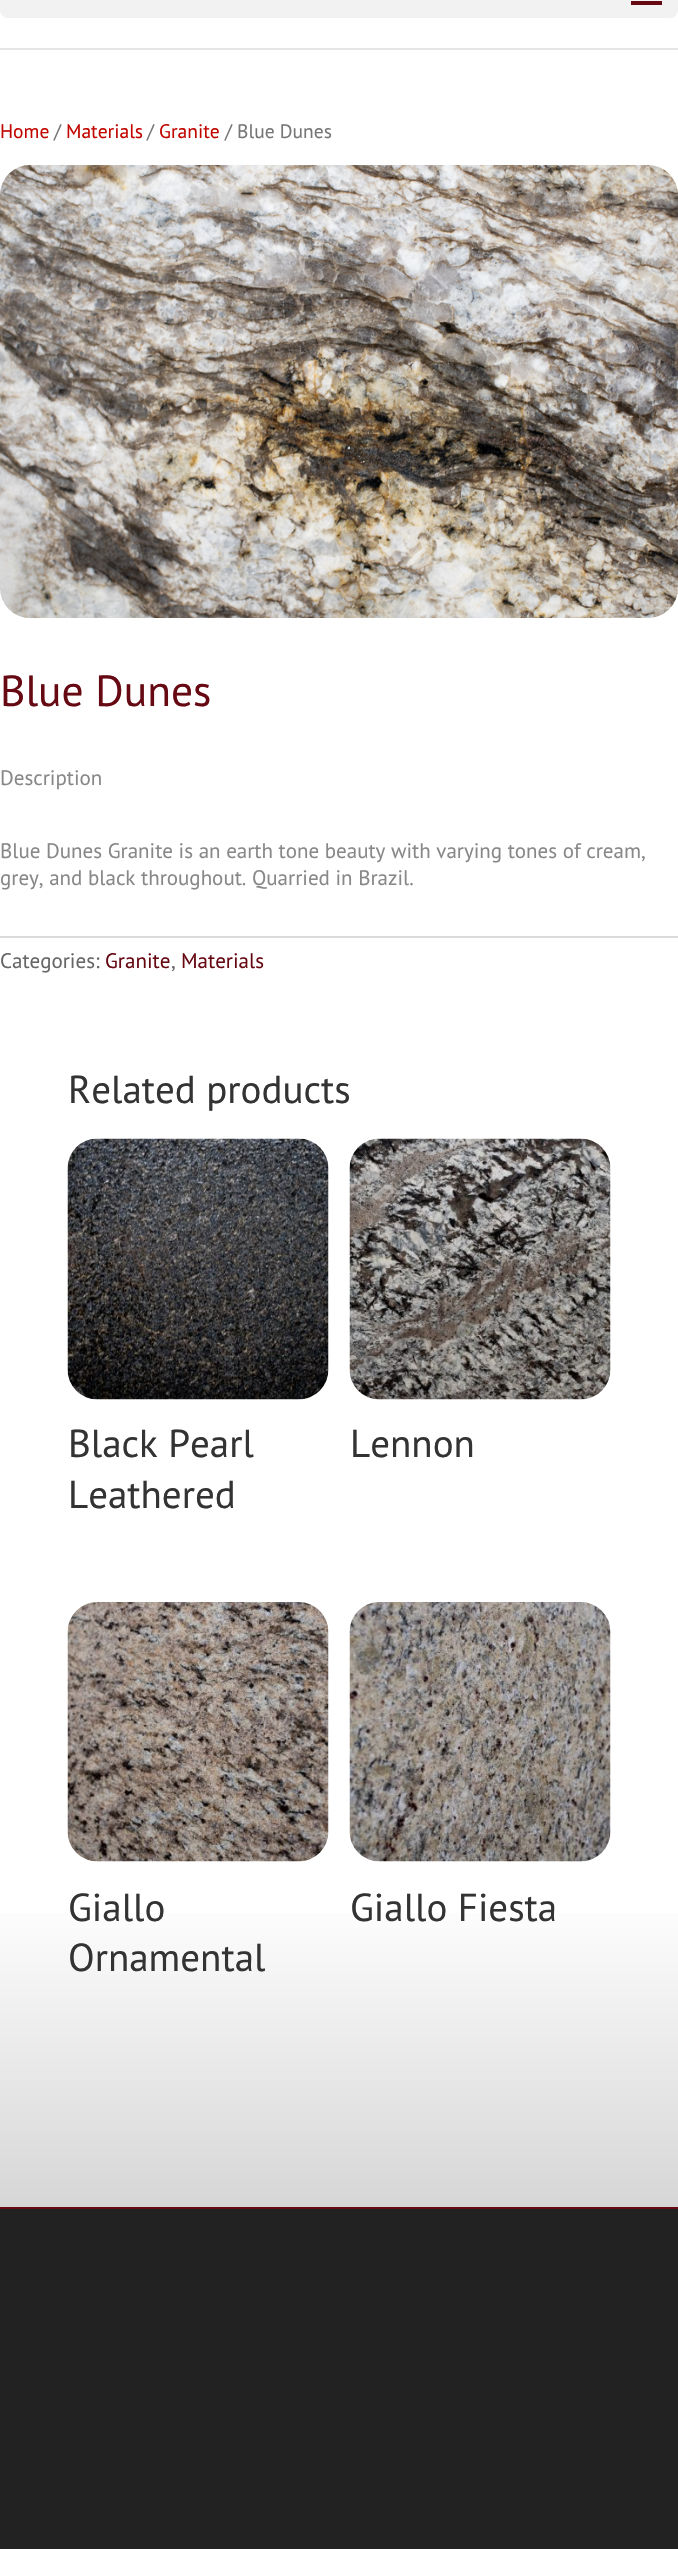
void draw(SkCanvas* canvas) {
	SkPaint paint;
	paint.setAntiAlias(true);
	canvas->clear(0xffffffff);
	paint.setColor(0xffe6e6e6);
	canvas->drawRect(SkRect::MakeXYWH(0, 48, 678, 2), paint);
	paint.setColor(0xfff2f2f2);
	canvas->drawRoundRect(SkRect::MakeXYWH(0, -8, 678, 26), 8, 8, paint);
	paint.setColor(0xff660913);
	canvas->drawRect(SkRect::MakeXYWH(631, 1, 31, 4), paint);
	{
		const SkColor colors[] = {0xffd6d6d6, 0xffffffff};
		const float stops[] = {0, 0.15};
		const SkPoint ends[] = {{339, 2207}, {339, 119}};
		paint.setShader(SkGradientShader::MakeLinear(ends, colors, stops, 2, SkTileMode::kClamp));
		paint.setAlpha(255);
	}
	canvas->drawRect(SkRect::MakeXYWH(0, 1913, 678, 294), paint);
	paint.setShader(nullptr);
	paint.setColor(0xff660913);
	canvas->drawRect(SkRect::MakeXYWH(0, 2207, 678, 2), paint);
	SkFont f1(fontMgr->matchFamilyStyle("PT Sans", SkFontStyle::Normal()), 19.5);
	f1.setSubpixel(true);
	paint.setColor(0xffc10600);
	canvas->drawString("Home", 0, 138, f1, paint);
	paint.setColor(0xff767676);
	canvas->drawString("/", 54, 138, f1, paint);
	paint.setColor(0xffc10600);
	canvas->drawString("Materials", 66, 138, f1, paint);
	paint.setColor(0xff767676);
	canvas->drawString("/", 147, 138, f1, paint);
	paint.setColor(0xffc10600);
	canvas->drawString("Granite", 159, 138, f1, paint);
	paint.setColor(0xff767676);
	canvas->drawString("/ Blue Dunes", 225, 138, f1, paint);
	canvas->drawImageRect(SkImages::DeferredFromEncodedData(SkData::MakeFromFileName("img1.png")), SkRect::MakeXYWH(0, 165, 678, 453), SkSamplingOptions());
	SkFont f2(fontMgr->matchFamilyStyle("PT Sans", SkFontStyle::Normal()), 43.5);
	f2.setSubpixel(true);
	paint.setColor(0xff660913);
	canvas->drawString("Blue Dunes", 0, 706, f2, paint);
	SkFont f3(fontMgr->matchFamilyStyle("PT Sans", SkFontStyle::Normal()), 21);
	f3.setSubpixel(true);
	paint.setColor(0xff888888);
	canvas->drawString("Description", 0, 785, f3, paint);
	canvas->drawString("Blue Dunes Granite is an earth tone beauty with varying tones of cream,", 0, 858, f3, paint);
	canvas->drawString("grey, and black throughout. Quarried in Brazil.", 0, 885, f3, paint);
	paint.setColor(0xffdadada);
	canvas->drawRect(SkRect::MakeXYWH(0, 936, 678, 2), paint);
	paint.setColor(0xff666666);
	canvas->drawString("Categories:", 0, 968, f3, paint);
	paint.setColor(0xff660913);
	canvas->drawString("Granite", 105, 968, f3, paint);
	paint.setColor(0xff666666);
	canvas->drawString(",", 171, 968, f3, paint);
	paint.setColor(0xff660913);
	canvas->drawString("Materials", 181, 968, f3, paint);
	SkFont f4(fontMgr->matchFamilyStyle("PT Sans", SkFontStyle::Normal()), 39);
	f4.setSubpixel(true);
	paint.setColor(0xff333333);
	canvas->drawString("Related products", 68, 1103, f4, paint);
	canvas->drawImageRect(SkImages::DeferredFromEncodedData(SkData::MakeFromFileName("img2.png")), SkRect::MakeXYWH(67, 1138, 262, 262), SkSamplingOptions());
	canvas->drawString("Black Pearl", 68, 1457, f4, paint);
	canvas->drawString("Leathered", 68, 1508, f4, paint);
	canvas->drawImageRect(SkImages::DeferredFromEncodedData(SkData::MakeFromFileName("img3.png")), SkRect::MakeXYWH(349, 1138, 262, 262), SkSamplingOptions());
	canvas->drawString("Lennon", 350, 1457, f4, paint);
	canvas->drawImageRect(SkImages::DeferredFromEncodedData(SkData::MakeFromFileName("img4.png")), SkRect::MakeXYWH(67, 1602, 262, 260), SkSamplingOptions());
	canvas->drawString("Giallo", 68, 1921, f4, paint);
	canvas->drawString("Ornamental", 68, 1971, f4, paint);
	canvas->drawImageRect(SkImages::DeferredFromEncodedData(SkData::MakeFromFileName("img5.png")), SkRect::MakeXYWH(349, 1602, 262, 260), SkSamplingOptions());
	canvas->drawString("Giallo Fiesta", 350, 1921, f4, paint);
	paint.setColor(0xff222222);
	canvas->drawRect(SkRect::MakeXYWH(0, 2209, 678, 340), paint);
}
